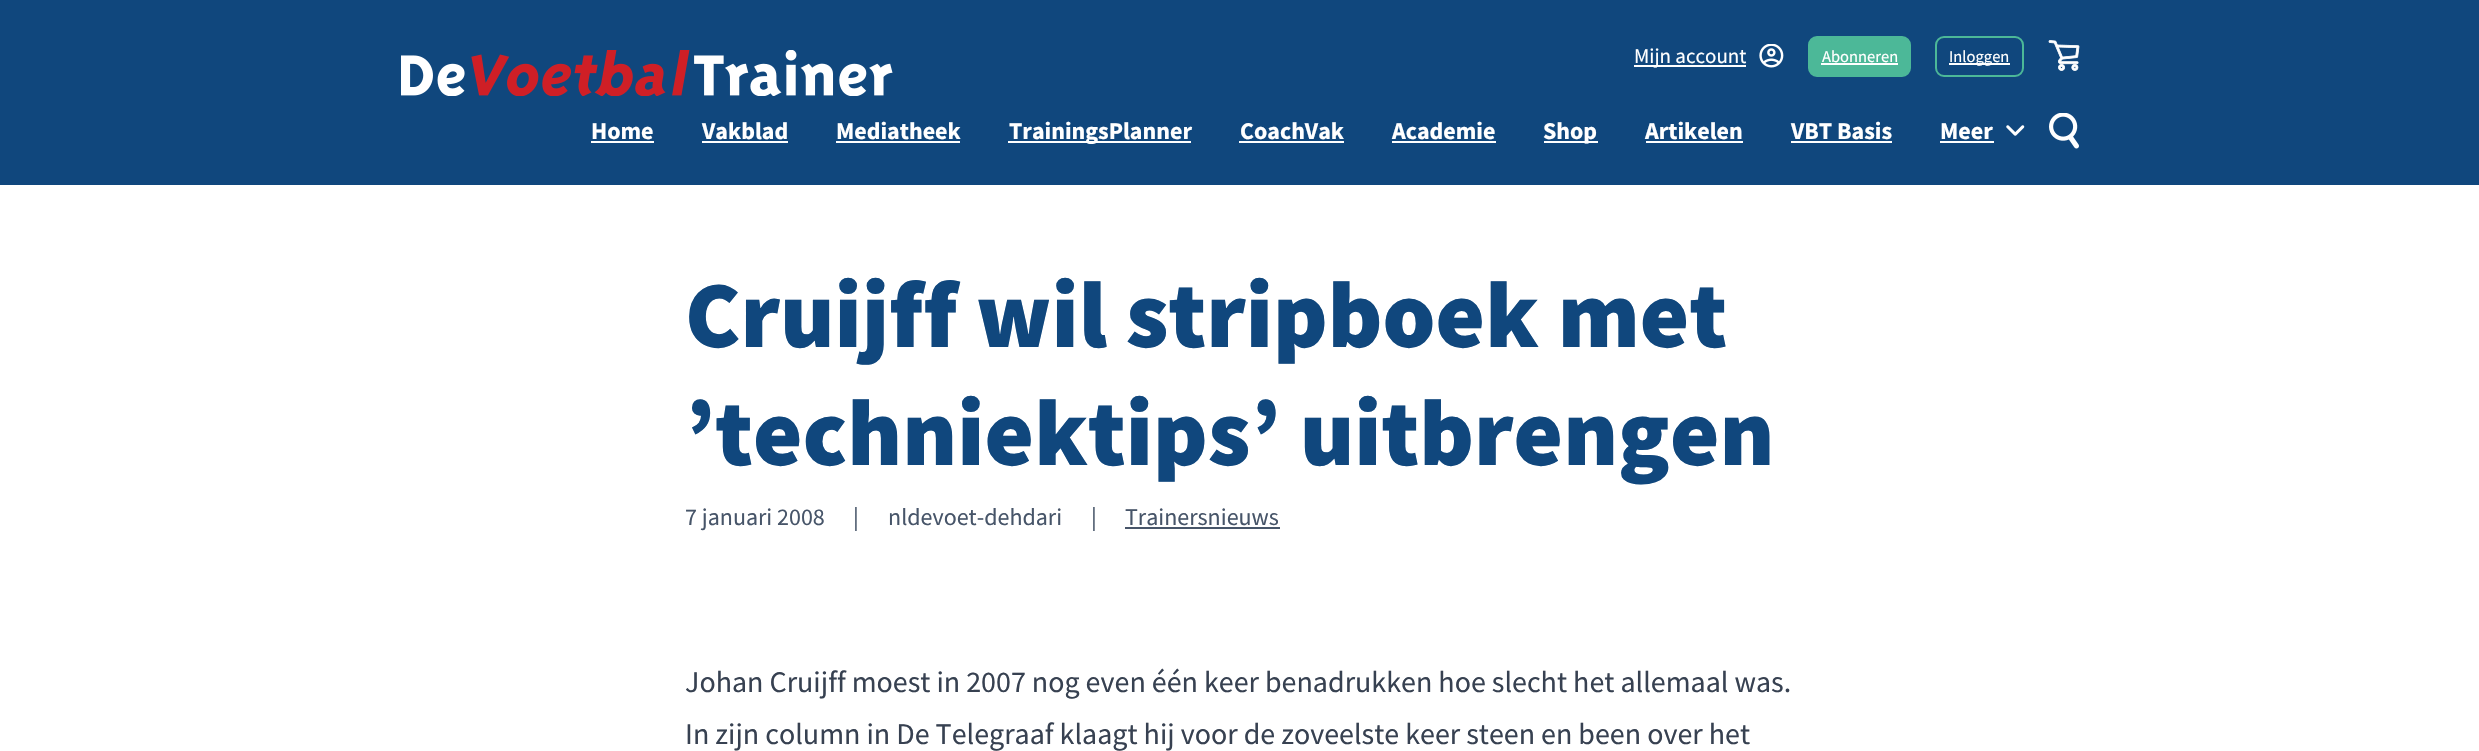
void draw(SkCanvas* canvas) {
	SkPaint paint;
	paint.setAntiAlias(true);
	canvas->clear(0xffffffff);
	paint.setColor(0xff10477d);
	canvas->drawRect(SkRect::MakeXYWH(0, 0, 2479, 185), paint);
	canvas->drawImageRect(SkImages::DeferredFromEncodedData(SkData::MakeFromFileName("img1.png")), SkRect::MakeXYWH(401, 50, 492, 46), SkSamplingOptions());
	paint.setColor(0xffffffff);
	canvas->drawRect(SkRect::MakeXYWH(1634, 65, 112, 2), paint);
	SkFont f1(fontMgr->matchFamilyStyle("Source Sans Pro", SkFontStyle::Normal()), 21);
	f1.setSubpixel(true);
	canvas->drawString("Mijn account", 1634, 63, f1, paint);
	canvas->drawImageRect(SkImages::DeferredFromEncodedData(SkData::MakeFromFileName("img2.png")), SkRect::MakeXYWH(1759, 44, 25, 24), SkSamplingOptions());
	paint.setColor(0xff4cb898);
	canvas->drawRoundRect(SkRect::MakeXYWH(1809, 37, 101, 39), 8, 8, paint);
	paint.setStroke(true);
	paint.setStrokeWidth(2);
	canvas->drawRoundRect(SkRect::MakeXYWH(1809, 37, 101, 39), 8, 8, paint);
	SkFont f2(fontMgr->matchFamilyStyle("Source Sans Pro", SkFontStyle::Normal()), 16.5);
	f2.setSubpixel(true);
	paint.setStroke(false);
	paint.setColor(0xffffffff);
	canvas->drawString("Abonneren", 1822, 62, f2, paint);
	canvas->drawRect(SkRect::MakeXYWH(1821, 63, 77, 2), paint);
	paint.setStroke(true);
	paint.setColor(0xff4cb898);
	canvas->drawRoundRect(SkRect::MakeXYWH(1936, 37, 87, 39), 8, 8, paint);
	paint.setStroke(false);
	paint.setColor(0xffffffff);
	canvas->drawRect(SkRect::MakeXYWH(1949, 63, 61, 2), paint);
	canvas->drawString("Inloggen", 1949, 62, f2, paint);
	canvas->drawImageRect(SkImages::DeferredFromEncodedData(SkData::MakeFromFileName("img3.png")), SkRect::MakeXYWH(2048, 40, 32, 31), SkSamplingOptions());
	SkFont f3(fontMgr->matchFamilyStyle("Source Sans Pro", SkFontStyle::Bold()), 24);
	f3.setSubpixel(true);
	canvas->drawString("Home", 591, 139, f3, paint);
	canvas->drawRect(SkRect::MakeXYWH(591, 141, 63, 2), paint);
	canvas->drawString("Vakblad", 702, 139, f3, paint);
	canvas->drawRect(SkRect::MakeXYWH(702, 141, 86, 2), paint);
	canvas->drawString("Mediatheek", 836, 139, f3, paint);
	canvas->drawRect(SkRect::MakeXYWH(836, 141, 124, 2), paint);
	canvas->drawRect(SkRect::MakeXYWH(1008, 141, 183, 2), paint);
	canvas->drawString("TrainingsPlanner", 1009, 139, f3, paint);
	canvas->drawString("CoachVak", 1240, 139, f3, paint);
	canvas->drawRect(SkRect::MakeXYWH(1239, 141, 105, 2), paint);
	canvas->drawString("Academie", 1392, 139, f3, paint);
	canvas->drawRect(SkRect::MakeXYWH(1392, 141, 104, 2), paint);
	canvas->drawRect(SkRect::MakeXYWH(1544, 141, 54, 2), paint);
	canvas->drawString("Shop", 1543, 139, f3, paint);
	canvas->drawString("Artikelen", 1645, 139, f3, paint);
	canvas->drawRect(SkRect::MakeXYWH(1646, 141, 97, 2), paint);
	canvas->drawString("VBT Basis", 1791, 139, f3, paint);
	canvas->drawRect(SkRect::MakeXYWH(1791, 141, 101, 2), paint);
	canvas->drawString("Meer", 1940, 139, f3, paint);
	canvas->drawRect(SkRect::MakeXYWH(1940, 141, 54, 2), paint);
	canvas->drawImageRect(SkImages::DeferredFromEncodedData(SkData::MakeFromFileName("img4.png")), SkRect::MakeXYWH(2006, 125, 19, 11), SkSamplingOptions());
	canvas->drawImageRect(SkImages::DeferredFromEncodedData(SkData::MakeFromFileName("img5.png")), SkRect::MakeXYWH(2049, 113, 30, 36), SkSamplingOptions());
	SkFont f4(fontMgr->matchFamilyStyle("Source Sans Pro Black", SkFontStyle(900, SkFontStyle::kNormal_Width, SkFontStyle::kUpright_Slant)), 94.5);
	f4.setSubpixel(true);
	paint.setColor(0xff10477d);
	canvas->drawString("Cruijff wil stripboek met", 685, 347, f4, paint);
	canvas->drawString("’techniektips’ uitbrengen", 685, 465, f4, paint);
	SkFont f5(fontMgr->matchFamilyStyle("Source Sans Pro", SkFontStyle::Normal()), 24);
	f5.setSubpixel(true);
	paint.setColor(0xff475569);
	canvas->drawString("7 januari 2008", 685, 525, f5, paint);
	canvas->drawString("|", 853, 525, f5, paint);
	canvas->drawString("nldevoet-dehdari", 888, 525, f5, paint);
	canvas->drawString("|", 1091, 525, f5, paint);
	canvas->drawString("Trainersnieuws", 1125, 525, f5, paint);
	canvas->drawRect(SkRect::MakeXYWH(1125, 527, 155, 2), paint);
	SkFont f6(fontMgr->matchFamilyStyle("Source Sans Pro", SkFontStyle::Normal()), 30);
	f6.setSubpixel(true);
	paint.setColor(0xff374151);
	canvas->drawString("Johan Cruijff moest in 2007 nog even één keer benadrukken hoe slecht het allemaal was.", 685, 692, f6, paint);
	canvas->drawString("In zijn column in De Telegraaf klaagt hij voor de zoveelste keer steen en been over het", 685, 744, f6, paint);
}
